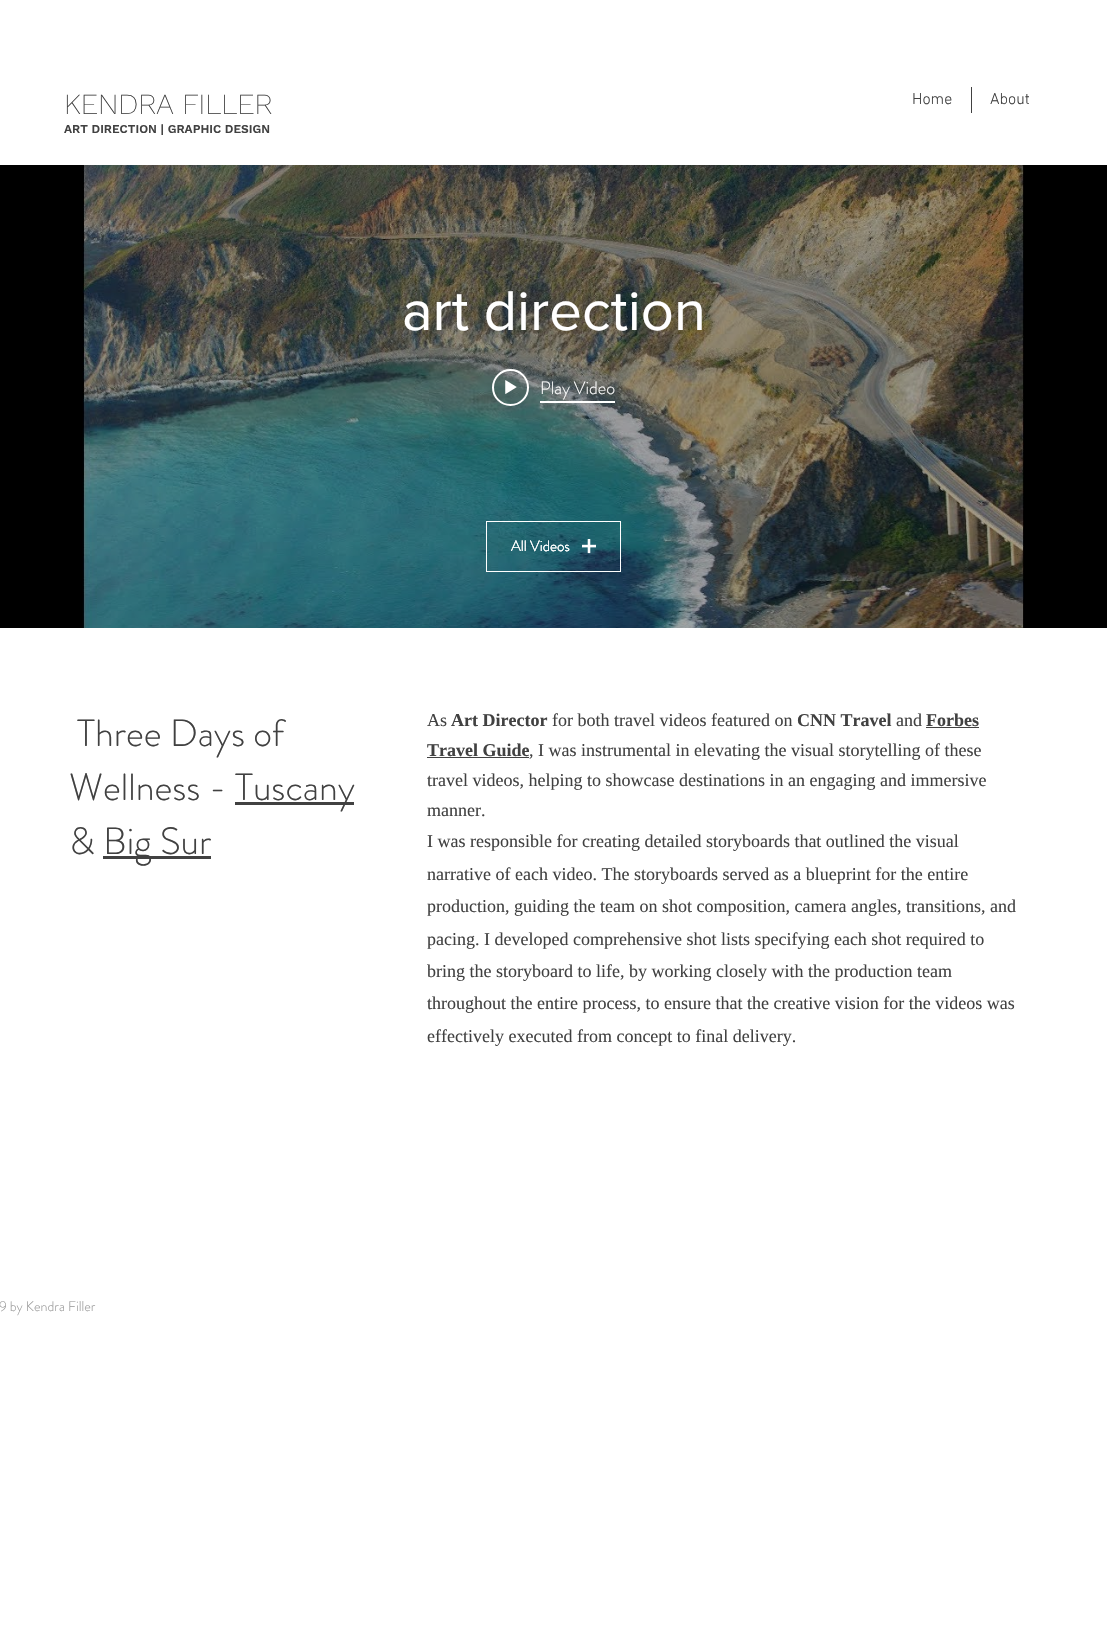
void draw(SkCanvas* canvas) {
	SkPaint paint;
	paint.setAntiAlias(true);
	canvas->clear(0xffffffff);
	SkFont f1(fontMgr->matchFamilyStyle("Work Sans", SkFontStyle(200, SkFontStyle::kNormal_Width, SkFontStyle::kUpright_Slant)), 29);
	f1.setSubpixel(true);
	paint.setColor(0xff414141);
	canvas->drawString("KENDRA FILLER", 64, 114, f1, paint);
	SkFont f2(fontMgr->matchFamilyStyle("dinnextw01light", SkFontStyle(300, SkFontStyle::kNormal_Width, SkFontStyle::kUpright_Slant)), 16);
	f2.setSubpixel(true);
	canvas->drawString("Home", 912, 104, f2, paint);
	canvas->drawRect(SkRect::MakeXYWH(971, 87, 1, 26), paint);
	canvas->drawString("About", 990, 104, f2, paint);
	SkFont f3(fontMgr->matchFamilyStyle("Work Sans", SkFontStyle(600, SkFontStyle::kNormal_Width, SkFontStyle::kUpright_Slant)), 12);
	f3.setSubpixel(true);
	canvas->drawString("ART DIRECTION | GRAPHIC DESIGN", 64, 133, f3, paint);
	paint.setColor(0xff000000);
	canvas->drawRect(SkRect::MakeXYWH(0, 165, 1107, 463), paint);
	canvas->drawImageRect(SkImages::DeferredFromEncodedData(SkData::MakeFromFileName("img1.png")), SkRect::MakeXYWH(82, 165, 942, 463), SkSamplingOptions());
	canvas->drawImageRect(SkImages::DeferredFromEncodedData(SkData::MakeFromFileName("img2.png")), SkRect::MakeXYWH(84, 165, 939, 463), SkSamplingOptions());
	SkFont f4(fontMgr->matchFamilyStyle("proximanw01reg", SkFontStyle::Normal()), 58);
	f4.setSubpixel(true);
	paint.setColor(0xffffffff);
	canvas->drawString("art direction", 402, 330, f4, paint);
	paint.setStroke(true);
	paint.setStrokeWidth(2);
	canvas->drawCircle(510.5, 387.5, 17.5, paint);
	canvas->drawImageRect(SkImages::DeferredFromEncodedData(SkData::MakeFromFileName("img3.png")), SkRect::MakeXYWH(505, 380, 12, 14), SkSamplingOptions());
	paint.setStroke(false);
	canvas->drawRect(SkRect::MakeXYWH(540, 401, 75, 2), paint);
	SkFont f5(fontMgr->matchFamilyStyle("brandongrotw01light", SkFontStyle(300, SkFontStyle::kNormal_Width, SkFontStyle::kUpright_Slant)), 18);
	f5.setSubpixel(true);
	canvas->drawString("Play Video", 540, 394, f5, paint);
	paint.setStroke(true);
	paint.setStrokeWidth(1);
	canvas->drawRect(SkRect::MakeXYWH(486.5, 521.5, 134, 50), paint);
	SkFont f6(fontMgr->matchFamilyStyle("brandongrotw01light", SkFontStyle(300, SkFontStyle::kNormal_Width, SkFontStyle::kUpright_Slant)), 15);
	f6.setSubpixel(true);
	paint.setStroke(false);
	canvas->drawString("All Videos", 511, 551, f6, paint);
	canvas->drawString("All Videos", 511, 551, f6, paint);
	canvas->drawImageRect(SkImages::DeferredFromEncodedData(SkData::MakeFromFileName("img5.png")), SkRect::MakeXYWH(582, 539, 14, 15), SkSamplingOptions());
	canvas->drawImageRect(SkImages::DeferredFromEncodedData(SkData::MakeFromFileName("img4.png")), SkRect::MakeXYWH(582, 539, 14, 15), SkSamplingOptions());
	SkFont f7(fontMgr->matchFamilyStyle("brandongrotw01light", SkFontStyle(300, SkFontStyle::kNormal_Width, SkFontStyle::kUpright_Slant)), 38);
	f7.setSubpixel(true);
	paint.setColor(0xff414141);
	canvas->drawString("Three Days of", 77, 746, f7, paint);
	canvas->drawString("Wellness -", 69, 800, f7, paint);
	canvas->drawRect(SkRect::MakeXYWH(235, 802, 119, 3), paint);
	canvas->drawString("Tuscany", 235, 800, f7, paint);
	canvas->drawString("&", 69, 854, f7, paint);
	canvas->drawRect(SkRect::MakeXYWH(103, 856, 108, 3), paint);
	canvas->drawString("Big Sur", 103, 854, f7, paint);
	SkFont f8(fontMgr->matchFamilyStyle("Liberation Serif", SkFontStyle::Normal()), 18);
	f8.setSubpixel(true);
	canvas->drawString("As", 427, 726, f8, paint);
	SkFont f9(fontMgr->matchFamilyStyle("Liberation Serif", SkFontStyle::Bold()), 18);
	f9.setSubpixel(true);
	canvas->drawString("Art Director", 451, 726, f9, paint);
	canvas->drawString("for both travel videos featured on", 552, 726, f8, paint);
	canvas->drawString("CNN Travel", 797, 726, f9, paint);
	canvas->drawString("and", 896, 726, f8, paint);
	canvas->drawString("Forbes", 926, 726, f9, paint);
	canvas->drawRect(SkRect::MakeXYWH(926, 727, 53, 1), paint);
	canvas->drawString("Travel Guide", 427, 756, f9, paint);
	canvas->drawString(", I was instrumental in elevating the visual storytelling of these", 529, 756, f8, paint);
	canvas->drawRect(SkRect::MakeXYWH(427, 757, 102, 1), paint);
	canvas->drawString("travel videos, helping to showcase destinations in an engaging and immersive", 427, 786, f8, paint);
	canvas->drawString("manner.", 427, 816, f8, paint);
	canvas->drawString("I was responsible for creating detailed storyboards that outlined the visual", 427, 847, f8, paint);
	canvas->drawString("narrative of each video. The storyboards served as a blueprint for the entire", 427, 880, f8, paint);
	canvas->drawString("production, guiding the team on shot composition, camera angles, transitions, and", 427, 912, f8, paint);
	canvas->drawString("pacing. I developed comprehensive shot lists specifying each shot required to", 427, 945, f8, paint);
	canvas->drawString("bring the storyboard to life, by working closely with the production team", 427, 977, f8, paint);
	canvas->drawString("throughout the entire process, to ensure that the creative vision for the videos was", 427, 1009, f8, paint);
	canvas->drawString("effectively executed from concept to final delivery.", 427, 1042, f8, paint);
	SkFont f10(fontMgr->matchFamilyStyle("brandongrotw01light", SkFontStyle(300, SkFontStyle::kNormal_Width, SkFontStyle::kUpright_Slant)), 14);
	f10.setSubpixel(true);
	paint.setColor(0xff999999);
	canvas->drawString("9 by Kendra Filler", -1, 1311, f10, paint);
}
